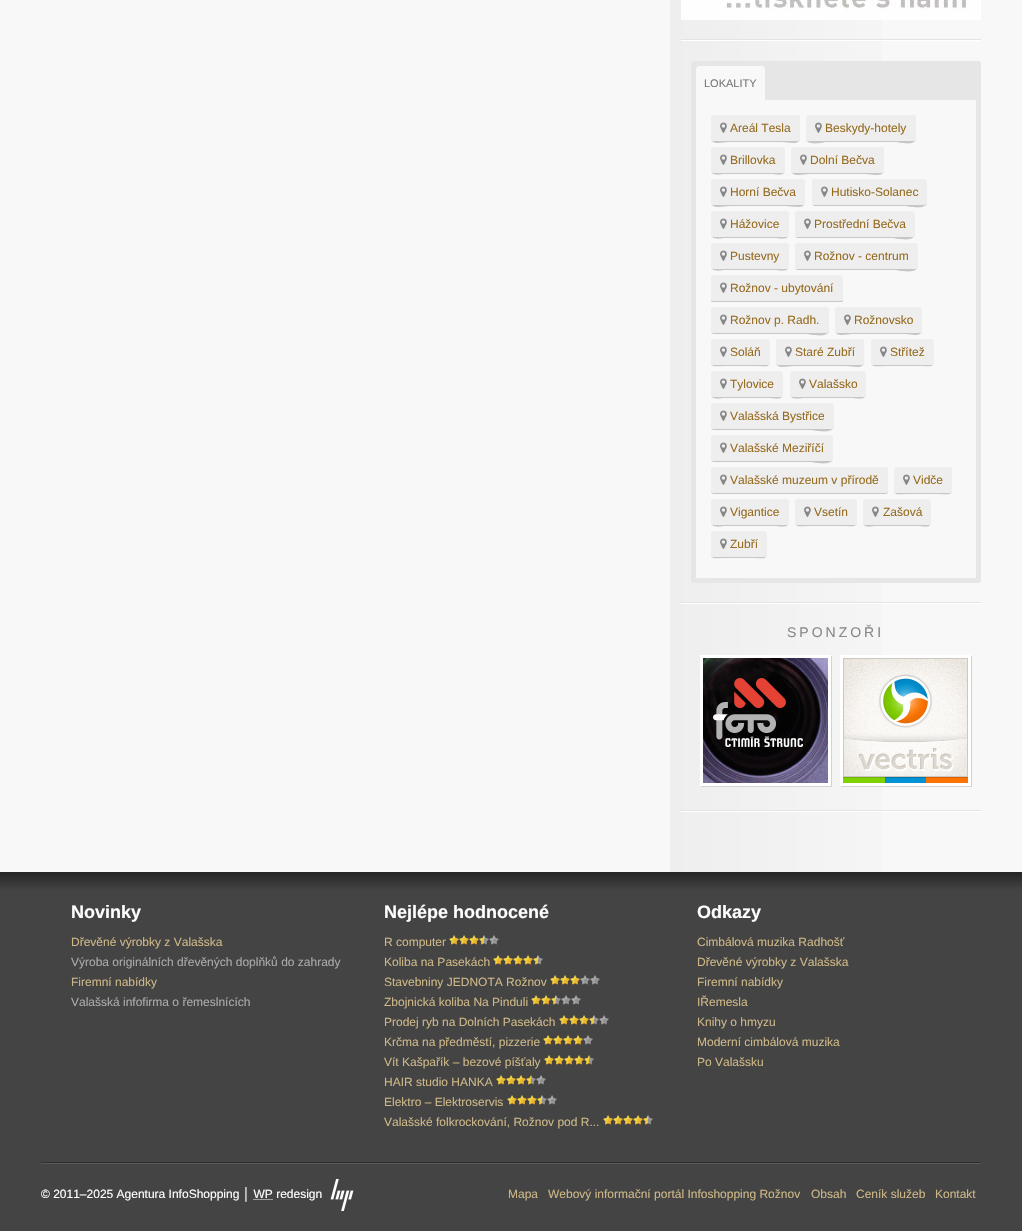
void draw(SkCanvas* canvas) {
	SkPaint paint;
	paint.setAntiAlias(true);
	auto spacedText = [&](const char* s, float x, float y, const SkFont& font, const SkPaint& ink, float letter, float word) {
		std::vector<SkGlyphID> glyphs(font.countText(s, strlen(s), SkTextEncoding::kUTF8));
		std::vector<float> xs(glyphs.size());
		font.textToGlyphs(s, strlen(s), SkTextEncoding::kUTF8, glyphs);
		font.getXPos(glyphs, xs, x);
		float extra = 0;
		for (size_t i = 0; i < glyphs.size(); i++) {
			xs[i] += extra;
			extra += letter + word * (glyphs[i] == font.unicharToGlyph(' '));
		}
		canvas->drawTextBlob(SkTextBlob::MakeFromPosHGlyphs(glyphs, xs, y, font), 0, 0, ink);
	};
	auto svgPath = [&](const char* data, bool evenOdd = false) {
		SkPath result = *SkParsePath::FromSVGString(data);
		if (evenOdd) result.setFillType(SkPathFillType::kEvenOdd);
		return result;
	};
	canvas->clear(0xfff8f8f8);
	{
		const SkColor colors[] = {0xfff8f8f8, 0xffeeeeee, 0xffe7e7e7, 0xffe7e7e7, 0xfff8f8f8};
		const float stops[] = {0.09, 0.98, 0.98, 0.98, 0.98};
		const SkPoint ends[] = {{981, 311}, {664, 311}};
		paint.setShader(SkGradientShader::MakeLinear(ends, colors, stops, 5, SkTileMode::kClamp));
		paint.setAlpha(255);
	}
	canvas->drawRect(SkRect::MakeXYWH(670, 0, 212, 872), paint);
	paint.setShader(nullptr);
	paint.setColor(0xffe3e3e3);
	canvas->drawRect(SkRect::MakeXYWH(681, 39, 300, 1), paint);
	paint.setColor(0xffffffff);
	canvas->drawRect(SkRect::MakeXYWH(681, 40, 300, 1), paint);
	canvas->drawImageRect(SkImages::DeferredFromEncodedData(SkData::MakeFromFileName("img1.png")), SkRect::MakeXYWH(681, 0, 300, 20), SkSamplingOptions());
	paint.setColor(0xffe3e3e3);
	canvas->drawRect(SkRect::MakeXYWH(681, 602, 300, 1), paint);
	paint.setColor(0xffffffff);
	canvas->drawRect(SkRect::MakeXYWH(681, 603, 300, 1), paint);
	paint.setColor(0xffe6e6e6);
	canvas->drawRoundRect(SkRect::MakeXYWH(691, 61, 290, 522), 3, 3, paint);
	paint.setColor(0xfff8f8f8);
	canvas->drawPath(svgPath("M699 66H762C763.5 66 765 67.5 765 69V100H696V69C696 67.5 697.5 66 699 66Z"), paint);
	SkFont f1(fontMgr->matchFamilyStyle("Liberation Sans", SkFontStyle::Normal()), 11);
	f1.setSubpixel(true);
	paint.setColor(0xff777777);
	canvas->drawString("LOKALITY", 704, 87, f1, paint);
	paint.setColor(0xfff8f8f8);
	canvas->drawRect(SkRect::MakeXYWH(696, 100, 280, 478), paint);
	paint.setColor(0xffc6c6c6);
	canvas->drawPath(svgPath("M711 138C711 146 724 142 728 142H783C787 142 800 146 800 138C800 140 799 141 797 141H714C712 141 711 140 711 138Z"), paint);
	paint.setColor(0xffeeeeee);
	canvas->drawRoundRect(SkRect::MakeXYWH(711, 115, 89, 26), 3, 3, paint);
	canvas->drawImageRect(SkImages::DeferredFromEncodedData(SkData::MakeFromFileName("img2.png")), SkRect::MakeXYWH(720, 122, 7, 11), SkSamplingOptions());
	SkFont f2(fontMgr->matchFamilyStyle("Liberation Sans", SkFontStyle::Normal()), 12);
	f2.setSubpixel(true);
	paint.setColor(0xff966b20);
	canvas->drawString("Areál Tesla", 730, 132, f2, paint);
	paint.setColor(0xffc6c6c6);
	canvas->drawPath(svgPath("M806 138C806 147 824 142 826 142H896C898 142 916 147 916 138C916 140 915 141 913 141H809C807 141 806 140 806 138Z"), paint);
	paint.setColor(0xffeeeeee);
	canvas->drawRoundRect(SkRect::MakeXYWH(806, 115, 110, 26), 3, 3, paint);
	canvas->drawImageRect(SkImages::DeferredFromEncodedData(SkData::MakeFromFileName("img2.png")), SkRect::MakeXYWH(815, 122, 7, 11), SkSamplingOptions());
	paint.setColor(0xff966b20);
	canvas->drawString("Beskydy-hotely", 825, 132, f2, paint);
	paint.setColor(0xffc6c6c6);
	canvas->drawPath(svgPath("M711 170C711 177 721 174 725 174H771C775 174 785 177 785 170C785 172 784 173 782 173H714C712 173 711 172 711 170Z"), paint);
	paint.setColor(0xffeeeeee);
	canvas->drawRoundRect(SkRect::MakeXYWH(711, 147, 74, 26), 3, 3, paint);
	canvas->drawImageRect(SkImages::DeferredFromEncodedData(SkData::MakeFromFileName("img2.png")), SkRect::MakeXYWH(720, 154, 7, 11), SkSamplingOptions());
	paint.setColor(0xff966b20);
	canvas->drawString("Brillovka", 730, 164, f2, paint);
	paint.setColor(0xffc6c6c6);
	canvas->drawPath(svgPath("M791 170C791 178 805 174 808 174H866C870 174 884 178 884 170C884 172 883 173 881 173H794C792 173 791 172 791 170Z"), paint);
	paint.setColor(0xffeeeeee);
	canvas->drawRoundRect(SkRect::MakeXYWH(791, 147, 93, 26), 3, 3, paint);
	canvas->drawImageRect(SkImages::DeferredFromEncodedData(SkData::MakeFromFileName("img2.png")), SkRect::MakeXYWH(800, 154, 7, 11), SkSamplingOptions());
	paint.setColor(0xff966b20);
	canvas->drawString("Dolní Bečva", 810, 164, f2, paint);
	paint.setColor(0xffc6c6c6);
	canvas->drawPath(svgPath("M711 202C711 210 725 206 729 206H787C791 206 805 210 805 202C805 204 804 205 802 205H714C712 205 711 204 711 202Z"), paint);
	paint.setColor(0xffeeeeee);
	canvas->drawRoundRect(SkRect::MakeXYWH(711, 179, 94, 26), 3, 3, paint);
	canvas->drawImageRect(SkImages::DeferredFromEncodedData(SkData::MakeFromFileName("img2.png")), SkRect::MakeXYWH(720, 186, 7, 11), SkSamplingOptions());
	paint.setColor(0xff966b20);
	canvas->drawString("Horní Bečva", 730, 196, f2, paint);
	paint.setColor(0xffc6c6c6);
	canvas->drawPath(svgPath("M812 202C812 204 813 206 815 206H906C907 206 927 211 927 202L926 204L924 205H815C813 205 812 204 812 202Z"), paint);
	paint.setColor(0xffeeeeee);
	canvas->drawRoundRect(SkRect::MakeXYWH(812, 179, 115, 26), 3, 3, paint);
	canvas->drawImageRect(SkImages::DeferredFromEncodedData(SkData::MakeFromFileName("img2.png")), SkRect::MakeXYWH(821, 186, 7, 11), SkSamplingOptions());
	paint.setColor(0xff966b20);
	canvas->drawString("Hutisko-Solanec", 831, 196, f2, paint);
	paint.setColor(0xffc6c6c6);
	canvas->drawPath(svgPath("M711 234C711 241 722 238 726 238H774C778 238 789 241 789 234C789 236 788 237 786 237H714C712 237 711 236 711 234Z"), paint);
	paint.setColor(0xffeeeeee);
	canvas->drawRoundRect(SkRect::MakeXYWH(711, 211, 78, 26), 3, 3, paint);
	canvas->drawImageRect(SkImages::DeferredFromEncodedData(SkData::MakeFromFileName("img2.png")), SkRect::MakeXYWH(720, 218, 7, 11), SkSamplingOptions());
	paint.setColor(0xff966b20);
	canvas->drawString("Hážovice", 730, 228, f2, paint);
	paint.setColor(0xffc6c6c6);
	canvas->drawPath(svgPath("M795 234C795 236 796 238 798 238H893C894 238 915 243 915 234C915 236 914 237 912 237H798C796 237 795 236 795 234Z"), paint);
	paint.setColor(0xffeeeeee);
	canvas->drawRoundRect(SkRect::MakeXYWH(795, 211, 120, 26), 3, 3, paint);
	canvas->drawImageRect(SkImages::DeferredFromEncodedData(SkData::MakeFromFileName("img2.png")), SkRect::MakeXYWH(804, 218, 7, 11), SkSamplingOptions());
	paint.setColor(0xff966b20);
	canvas->drawString("Prostřední Bečva", 814, 228, f2, paint);
	paint.setColor(0xffc6c6c6);
	canvas->drawPath(svgPath("M711 266C711 273 722 270 726 270H774C778 270 789 273 789 266C789 268 788 269 786 269H714C712 269 711 268 711 266Z"), paint);
	paint.setColor(0xffeeeeee);
	canvas->drawRoundRect(SkRect::MakeXYWH(711, 243, 78, 26), 3, 3, paint);
	canvas->drawImageRect(SkImages::DeferredFromEncodedData(SkData::MakeFromFileName("img2.png")), SkRect::MakeXYWH(720, 250, 7, 11), SkSamplingOptions());
	paint.setColor(0xff966b20);
	canvas->drawString("Pustevny", 730, 260, f2, paint);
	paint.setColor(0xffc6c6c6);
	canvas->drawPath(svgPath("M795 266C795 268 796 270 798 270H896C896 270 918 275 918 266C918 268 917 269 915 269H798C796 269 795 268 795 266Z"), paint);
	paint.setColor(0xffeeeeee);
	canvas->drawRoundRect(SkRect::MakeXYWH(795, 243, 123, 26), 3, 3, paint);
	canvas->drawImageRect(SkImages::DeferredFromEncodedData(SkData::MakeFromFileName("img2.png")), SkRect::MakeXYWH(804, 250, 7, 11), SkSamplingOptions());
	paint.setColor(0xff966b20);
	canvas->drawString("Rožnov - centrum", 814, 260, f2, paint);
	paint.setColor(0xffc6c6c6);
	canvas->drawPath(svgPath("M711 298C711 300 711 302 713 302H841C843 302 843 300 843 298C843 300 842 301 840 301H714C712 301 711 300 711 298Z"), paint);
	paint.setColor(0xffeeeeee);
	canvas->drawRoundRect(SkRect::MakeXYWH(711, 275, 132, 26), 3, 3, paint);
	canvas->drawImageRect(SkImages::DeferredFromEncodedData(SkData::MakeFromFileName("img2.png")), SkRect::MakeXYWH(720, 282, 7, 11), SkSamplingOptions());
	paint.setColor(0xff966b20);
	canvas->drawString("Rožnov - ubytování", 730, 292, f2, paint);
	paint.setColor(0xffc6c6c6);
	canvas->drawPath(svgPath("M711 330C711 332 712 334 714 334H807C809 334 829 339 829 330L828 332L826 333H714C712 333 711 332 711 330Z"), paint);
	paint.setColor(0xffeeeeee);
	canvas->drawRoundRect(SkRect::MakeXYWH(711, 307, 118, 26), 3, 3, paint);
	canvas->drawImageRect(SkImages::DeferredFromEncodedData(SkData::MakeFromFileName("img2.png")), SkRect::MakeXYWH(720, 314, 7, 11), SkSamplingOptions());
	paint.setColor(0xff966b20);
	canvas->drawString("Rožnov p. Radh.", 730, 324, f2, paint);
	paint.setColor(0xffc6c6c6);
	canvas->drawPath(svgPath("M835 330C835 338 848 334 852 334H906C909 334 922 338 922 330C922 332 921 333 919 333H838C836 333 835 332 835 330Z"), paint);
	paint.setColor(0xffeeeeee);
	canvas->drawRoundRect(SkRect::MakeXYWH(835, 307, 87, 26), 3, 3, paint);
	canvas->drawImageRect(SkImages::DeferredFromEncodedData(SkData::MakeFromFileName("img2.png")), SkRect::MakeXYWH(844, 314, 7, 11), SkSamplingOptions());
	paint.setColor(0xff966b20);
	canvas->drawString("Rožnovsko", 854, 324, f2, paint);
	paint.setColor(0xffc6c6c6);
	canvas->drawPath(svgPath("M711 362C711 368 718 366 723 366H758C763 366 770 368 770 362C770 364 769 365 767 365H714C712 365 711 364 711 362Z"), paint);
	paint.setColor(0xffeeeeee);
	canvas->drawRoundRect(SkRect::MakeXYWH(711, 339, 59, 26), 3, 3, paint);
	canvas->drawImageRect(SkImages::DeferredFromEncodedData(SkData::MakeFromFileName("img2.png")), SkRect::MakeXYWH(720, 346, 7, 11), SkSamplingOptions());
	paint.setColor(0xff966b20);
	canvas->drawString("Soláň", 730, 356, f2, paint);
	paint.setColor(0xffc6c6c6);
	canvas->drawPath(svgPath("M776 362C776 370 789 366 793 366H847C851 366 864 370 864 362C864 364 863 365 861 365H779C777 365 776 364 776 362Z"), paint);
	paint.setColor(0xffeeeeee);
	canvas->drawRoundRect(SkRect::MakeXYWH(776, 339, 88, 26), 3, 3, paint);
	canvas->drawImageRect(SkImages::DeferredFromEncodedData(SkData::MakeFromFileName("img2.png")), SkRect::MakeXYWH(785, 346, 7, 11), SkSamplingOptions());
	paint.setColor(0xff966b20);
	canvas->drawString("Staré Zubří", 795, 356, f2, paint);
	paint.setColor(0xffc6c6c6);
	canvas->drawPath(svgPath("M871 362C871 368 879 366 884 366H922C926 366 934 368 934 362C934 364 933 365 931 365H874C872 365 871 364 871 362Z"), paint);
	paint.setColor(0xffeeeeee);
	canvas->drawRoundRect(SkRect::MakeXYWH(871, 339, 63, 26), 3, 3, paint);
	canvas->drawImageRect(SkImages::DeferredFromEncodedData(SkData::MakeFromFileName("img2.png")), SkRect::MakeXYWH(880, 346, 7, 11), SkSamplingOptions());
	paint.setColor(0xff966b20);
	canvas->drawString("Střítež", 890, 356, f2, paint);
	paint.setColor(0xffc6c6c6);
	canvas->drawPath(svgPath("M711 394C711 401 721 398 725 398H769C773 398 783 401 783 394C783 396 782 397 780 397H714C712 397 711 396 711 394Z"), paint);
	paint.setColor(0xffeeeeee);
	canvas->drawRoundRect(SkRect::MakeXYWH(711, 371, 72, 26), 3, 3, paint);
	canvas->drawImageRect(SkImages::DeferredFromEncodedData(SkData::MakeFromFileName("img2.png")), SkRect::MakeXYWH(720, 378, 7, 11), SkSamplingOptions());
	paint.setColor(0xff966b20);
	canvas->drawString("Tylovice", 730, 388, f2, paint);
	paint.setColor(0xffc6c6c6);
	canvas->drawPath(svgPath("M790 394C790 401 801 398 805 398H851C855 398 866 401 866 394C866 396 865 397 863 397H793C791 397 790 396 790 394Z"), paint);
	paint.setColor(0xffeeeeee);
	canvas->drawRoundRect(SkRect::MakeXYWH(790, 371, 76, 26), 3, 3, paint);
	canvas->drawImageRect(SkImages::DeferredFromEncodedData(SkData::MakeFromFileName("img2.png")), SkRect::MakeXYWH(799, 378, 7, 11), SkSamplingOptions());
	paint.setColor(0xff966b20);
	canvas->drawString("Valašsko", 809, 388, f2, paint);
	paint.setColor(0xffc6c6c6);
	canvas->drawPath(svgPath("M711 426C711 428 712 430 714 430H812C812 430 834 435 834 426C834 428 833 429 831 429H714C712 429 711 428 711 426Z"), paint);
	paint.setColor(0xffeeeeee);
	canvas->drawRoundRect(SkRect::MakeXYWH(711, 403, 123, 26), 3, 3, paint);
	canvas->drawImageRect(SkImages::DeferredFromEncodedData(SkData::MakeFromFileName("img2.png")), SkRect::MakeXYWH(720, 410, 7, 11), SkSamplingOptions());
	paint.setColor(0xff966b20);
	canvas->drawString("Valašská Bystřice", 730, 420, f2, paint);
	paint.setColor(0xffc6c6c6);
	canvas->drawPath(svgPath("M711 458C711 460 712 462 714 462H811C812 462 833 467 833 458C833 460 832 461 830 461H714C712 461 711 460 711 458Z"), paint);
	paint.setColor(0xffeeeeee);
	canvas->drawRoundRect(SkRect::MakeXYWH(711, 435, 122, 26), 3, 3, paint);
	canvas->drawImageRect(SkImages::DeferredFromEncodedData(SkData::MakeFromFileName("img2.png")), SkRect::MakeXYWH(720, 442, 7, 11), SkSamplingOptions());
	paint.setColor(0xff966b20);
	canvas->drawString("Valašské Meziříčí", 730, 452, f2, paint);
	paint.setColor(0xffc6c6c6);
	canvas->drawPath(svgPath("M711 490V491C711 493 712 494 714 494H885C887 494 888 493 888 491V490C888 492 887 493 885 493H714C712 493 711 492 711 490Z"), paint);
	paint.setColor(0xffeeeeee);
	canvas->drawRoundRect(SkRect::MakeXYWH(711, 467, 177, 26), 3, 3, paint);
	canvas->drawImageRect(SkImages::DeferredFromEncodedData(SkData::MakeFromFileName("img2.png")), SkRect::MakeXYWH(720, 474, 7, 11), SkSamplingOptions());
	paint.setColor(0xff966b20);
	canvas->drawString("Valašské muzeum v přírodě", 730, 484, f2, paint);
	paint.setColor(0xffc6c6c6);
	canvas->drawPath(svgPath("M894 490C894 496 901 494 906 494H940C945 494 952 496 952 490C952 492 951 493 949 493H897C895 493 894 492 894 490Z"), paint);
	paint.setColor(0xffeeeeee);
	canvas->drawRoundRect(SkRect::MakeXYWH(894, 467, 58, 26), 3, 3, paint);
	canvas->drawImageRect(SkImages::DeferredFromEncodedData(SkData::MakeFromFileName("img2.png")), SkRect::MakeXYWH(903, 474, 7, 11), SkSamplingOptions());
	paint.setColor(0xff966b20);
	canvas->drawString("Vidče", 913, 484, f2, paint);
	paint.setColor(0xffc6c6c6);
	canvas->drawPath(svgPath("M711 522C711 529 722 526 726 526H774C778 526 789 529 789 522C789 524 788 525 786 525H714C712 525 711 524 711 522Z"), paint);
	paint.setColor(0xffeeeeee);
	canvas->drawRoundRect(SkRect::MakeXYWH(711, 499, 78, 26), 3, 3, paint);
	canvas->drawImageRect(SkImages::DeferredFromEncodedData(SkData::MakeFromFileName("img2.png")), SkRect::MakeXYWH(720, 506, 7, 11), SkSamplingOptions());
	paint.setColor(0xff966b20);
	canvas->drawString("Vigantice", 730, 516, f2, paint);
	paint.setColor(0xffc6c6c6);
	canvas->drawPath(svgPath("M795 522C795 528 803 526 807 526H845C849 526 857 528 857 522C857 524 856 525 854 525H798C796 525 795 524 795 522Z"), paint);
	paint.setColor(0xffeeeeee);
	canvas->drawRoundRect(SkRect::MakeXYWH(795, 499, 62, 26), 3, 3, paint);
	canvas->drawImageRect(SkImages::DeferredFromEncodedData(SkData::MakeFromFileName("img2.png")), SkRect::MakeXYWH(804, 506, 7, 11), SkSamplingOptions());
	paint.setColor(0xff966b20);
	canvas->drawString("Vsetín", 814, 516, f2, paint);
	paint.setColor(0xffc6c6c6);
	canvas->drawPath(svgPath("M863 522C863 529 872 526 876 526H918C922 526 931 529 931 522C931 524 930 525 928 525H866C864 525 863 524 863 522Z"), paint);
	paint.setColor(0xffeeeeee);
	canvas->drawRoundRect(SkRect::MakeXYWH(863, 499, 68, 26), 3, 3, paint);
	canvas->drawImageRect(SkImages::DeferredFromEncodedData(SkData::MakeFromFileName("img2.png")), SkRect::MakeXYWH(872, 506, 7, 11), SkSamplingOptions());
	paint.setColor(0xff966b20);
	canvas->drawString("Zašová", 883, 516, f2, paint);
	paint.setColor(0xffc6c6c6);
	canvas->drawPath(svgPath("M711 554C711 560 718 558 722 558H756C760 558 767 560 767 554C767 556 766 557 764 557H714C712 557 711 556 711 554Z"), paint);
	paint.setColor(0xffeeeeee);
	canvas->drawRoundRect(SkRect::MakeXYWH(711, 531, 56, 26), 3, 3, paint);
	canvas->drawImageRect(SkImages::DeferredFromEncodedData(SkData::MakeFromFileName("img2.png")), SkRect::MakeXYWH(720, 538, 7, 11), SkSamplingOptions());
	paint.setColor(0xff966b20);
	canvas->drawString("Zubří", 730, 548, f2, paint);
	paint.setColor(0xffe3e3e3);
	canvas->drawRect(SkRect::MakeXYWH(681, 810, 300, 1), paint);
	paint.setColor(0xffffffff);
	canvas->drawRect(SkRect::MakeXYWH(681, 811, 300, 1), paint);
	SkFont f3(fontMgr->matchFamilyStyle("Liberation Sans", SkFontStyle::Normal()), 14);
	f3.setSubpixel(true);
	paint.setColor(0xff888888);
	spacedText("SPONZOŘI", 787, 637, f3, paint, 3, 0);
	paint.setColor(0xffd3d3d3);
	canvas->drawPath(svgPath("M701 786V787H832V656H831V786Z"), paint);
	paint.setColor(0xffffffff);
	canvas->drawRect(SkRect::MakeXYWH(700, 655, 131, 131), paint);
	canvas->drawImageRect(SkImages::DeferredFromEncodedData(SkData::MakeFromFileName("img3.png")), SkRect::MakeXYWH(703, 658, 125, 125), SkSamplingOptions());
	paint.setColor(0xffd3d3d3);
	canvas->drawPath(svgPath("M841 786V787H972V656H971V786Z"), paint);
	paint.setColor(0xffffffff);
	canvas->drawRect(SkRect::MakeXYWH(840, 655, 131, 131), paint);
	canvas->drawImageRect(SkImages::DeferredFromEncodedData(SkData::MakeFromFileName("img4.png")), SkRect::MakeXYWH(843, 658, 125, 125), SkSamplingOptions());
	{
		const SkColor colors[] = {0xff242424, 0xff444444};
		const float stops[] = {0, 0.05};
		const SkPoint ends[] = {{511, 872}, {511, 1231}};
		paint.setShader(SkGradientShader::MakeLinear(ends, colors, stops, 2, SkTileMode::kClamp));
		paint.setAlpha(255);
	}
	canvas->drawRect(SkRect::MakeXYWH(0, 872, 1022, 359), paint);
	paint.setShader(nullptr);
	paint.setColor(0xff2f2f2f);
	canvas->drawRect(SkRect::MakeXYWH(41, 1162, 940, 1), paint);
	SkFont f4(fontMgr->matchFamilyStyle("Liberation Sans", SkFontStyle::Bold()), 18);
	f4.setSubpixel(true);
	paint.setColor(0xffffffff);
	canvas->drawString("Novinky", 71, 918, f4, paint);
	paint.setColor(0xffcdb787);
	canvas->drawString("Dřevěné výrobky z Valašska", 71, 946, f2, paint);
	paint.setColor(0xffaaaaaa);
	canvas->drawString("Výroba originálních dřevěných doplňků do zahrady", 71, 966, f2, paint);
	paint.setColor(0xffcdb787);
	canvas->drawString("Firemní nabídky", 71, 986, f2, paint);
	paint.setColor(0xffaaaaaa);
	canvas->drawString("Valašská infofirma o řemeslnících", 71, 1006, f2, paint);
	paint.setColor(0xffffffff);
	canvas->drawString("Nejlépe hodnocené", 384, 918, f4, paint);
	paint.setColor(0xffcdb787);
	canvas->drawString("R computer", 384, 946, f2, paint);
	canvas->drawImageRect(SkImages::DeferredFromEncodedData(SkData::MakeFromFileName("img5.png")), SkRect::MakeXYWH(449, 935, 10, 10), SkSamplingOptions());
	canvas->drawImageRect(SkImages::DeferredFromEncodedData(SkData::MakeFromFileName("img5.png")), SkRect::MakeXYWH(459, 935, 10, 10), SkSamplingOptions());
	canvas->drawImageRect(SkImages::DeferredFromEncodedData(SkData::MakeFromFileName("img5.png")), SkRect::MakeXYWH(469, 935, 10, 10), SkSamplingOptions());
	canvas->drawImageRect(SkImages::DeferredFromEncodedData(SkData::MakeFromFileName("img6.png")), SkRect::MakeXYWH(479, 935, 10, 10), SkSamplingOptions());
	canvas->drawImageRect(SkImages::DeferredFromEncodedData(SkData::MakeFromFileName("img7.png")), SkRect::MakeXYWH(489, 935, 10, 10), SkSamplingOptions());
	canvas->drawString("Koliba na Pasekách", 384, 966, f2, paint);
	canvas->drawImageRect(SkImages::DeferredFromEncodedData(SkData::MakeFromFileName("img5.png")), SkRect::MakeXYWH(493, 955, 10, 10), SkSamplingOptions());
	canvas->drawImageRect(SkImages::DeferredFromEncodedData(SkData::MakeFromFileName("img5.png")), SkRect::MakeXYWH(503, 955, 10, 10), SkSamplingOptions());
	canvas->drawImageRect(SkImages::DeferredFromEncodedData(SkData::MakeFromFileName("img5.png")), SkRect::MakeXYWH(513, 955, 10, 10), SkSamplingOptions());
	canvas->drawImageRect(SkImages::DeferredFromEncodedData(SkData::MakeFromFileName("img5.png")), SkRect::MakeXYWH(523, 955, 10, 10), SkSamplingOptions());
	canvas->drawImageRect(SkImages::DeferredFromEncodedData(SkData::MakeFromFileName("img8.png")), SkRect::MakeXYWH(533, 955, 10, 10), SkSamplingOptions());
	canvas->drawString("Stavebniny JEDNOTA Rožnov", 384, 986, f2, paint);
	canvas->drawImageRect(SkImages::DeferredFromEncodedData(SkData::MakeFromFileName("img9.png")), SkRect::MakeXYWH(550, 975, 10, 10), SkSamplingOptions());
	canvas->drawImageRect(SkImages::DeferredFromEncodedData(SkData::MakeFromFileName("img9.png")), SkRect::MakeXYWH(560, 975, 10, 10), SkSamplingOptions());
	canvas->drawImageRect(SkImages::DeferredFromEncodedData(SkData::MakeFromFileName("img9.png")), SkRect::MakeXYWH(570, 975, 10, 10), SkSamplingOptions());
	canvas->drawImageRect(SkImages::DeferredFromEncodedData(SkData::MakeFromFileName("img10.png")), SkRect::MakeXYWH(580, 975, 10, 10), SkSamplingOptions());
	canvas->drawImageRect(SkImages::DeferredFromEncodedData(SkData::MakeFromFileName("img7.png")), SkRect::MakeXYWH(590, 975, 10, 10), SkSamplingOptions());
	canvas->drawString("Zbojnická koliba Na Pinduli", 384, 1006, f2, paint);
	canvas->drawImageRect(SkImages::DeferredFromEncodedData(SkData::MakeFromFileName("img5.png")), SkRect::MakeXYWH(531, 995, 10, 10), SkSamplingOptions());
	canvas->drawImageRect(SkImages::DeferredFromEncodedData(SkData::MakeFromFileName("img5.png")), SkRect::MakeXYWH(541, 995, 10, 10), SkSamplingOptions());
	canvas->drawImageRect(SkImages::DeferredFromEncodedData(SkData::MakeFromFileName("img8.png")), SkRect::MakeXYWH(551, 995, 10, 10), SkSamplingOptions());
	canvas->drawImageRect(SkImages::DeferredFromEncodedData(SkData::MakeFromFileName("img10.png")), SkRect::MakeXYWH(561, 995, 10, 10), SkSamplingOptions());
	canvas->drawImageRect(SkImages::DeferredFromEncodedData(SkData::MakeFromFileName("img10.png")), SkRect::MakeXYWH(571, 995, 10, 10), SkSamplingOptions());
	canvas->drawString("Prodej ryb na Dolních Pasekách", 384, 1026, f2, paint);
	canvas->drawImageRect(SkImages::DeferredFromEncodedData(SkData::MakeFromFileName("img5.png")), SkRect::MakeXYWH(559, 1015, 10, 10), SkSamplingOptions());
	canvas->drawImageRect(SkImages::DeferredFromEncodedData(SkData::MakeFromFileName("img5.png")), SkRect::MakeXYWH(569, 1015, 10, 10), SkSamplingOptions());
	canvas->drawImageRect(SkImages::DeferredFromEncodedData(SkData::MakeFromFileName("img5.png")), SkRect::MakeXYWH(579, 1015, 10, 10), SkSamplingOptions());
	canvas->drawImageRect(SkImages::DeferredFromEncodedData(SkData::MakeFromFileName("img6.png")), SkRect::MakeXYWH(589, 1015, 10, 10), SkSamplingOptions());
	canvas->drawImageRect(SkImages::DeferredFromEncodedData(SkData::MakeFromFileName("img7.png")), SkRect::MakeXYWH(599, 1015, 10, 10), SkSamplingOptions());
	canvas->drawString("Krčma na předměstí, pizzerie", 384, 1046, f2, paint);
	canvas->drawImageRect(SkImages::DeferredFromEncodedData(SkData::MakeFromFileName("img9.png")), SkRect::MakeXYWH(543, 1035, 10, 10), SkSamplingOptions());
	canvas->drawImageRect(SkImages::DeferredFromEncodedData(SkData::MakeFromFileName("img5.png")), SkRect::MakeXYWH(553, 1035, 10, 10), SkSamplingOptions());
	canvas->drawImageRect(SkImages::DeferredFromEncodedData(SkData::MakeFromFileName("img5.png")), SkRect::MakeXYWH(563, 1035, 10, 10), SkSamplingOptions());
	canvas->drawImageRect(SkImages::DeferredFromEncodedData(SkData::MakeFromFileName("img5.png")), SkRect::MakeXYWH(573, 1035, 10, 10), SkSamplingOptions());
	canvas->drawImageRect(SkImages::DeferredFromEncodedData(SkData::MakeFromFileName("img7.png")), SkRect::MakeXYWH(583, 1035, 10, 10), SkSamplingOptions());
	canvas->drawString("Vít Kašpařík – bezové píšťaly", 384, 1066, f2, paint);
	canvas->drawImageRect(SkImages::DeferredFromEncodedData(SkData::MakeFromFileName("img9.png")), SkRect::MakeXYWH(544, 1055, 10, 10), SkSamplingOptions());
	canvas->drawImageRect(SkImages::DeferredFromEncodedData(SkData::MakeFromFileName("img5.png")), SkRect::MakeXYWH(554, 1055, 10, 10), SkSamplingOptions());
	canvas->drawImageRect(SkImages::DeferredFromEncodedData(SkData::MakeFromFileName("img5.png")), SkRect::MakeXYWH(564, 1055, 10, 10), SkSamplingOptions());
	canvas->drawImageRect(SkImages::DeferredFromEncodedData(SkData::MakeFromFileName("img5.png")), SkRect::MakeXYWH(574, 1055, 10, 10), SkSamplingOptions());
	canvas->drawImageRect(SkImages::DeferredFromEncodedData(SkData::MakeFromFileName("img6.png")), SkRect::MakeXYWH(584, 1055, 10, 10), SkSamplingOptions());
	canvas->drawString("HAIR studio HANKA", 384, 1086, f2, paint);
	canvas->drawImageRect(SkImages::DeferredFromEncodedData(SkData::MakeFromFileName("img9.png")), SkRect::MakeXYWH(496, 1075, 10, 10), SkSamplingOptions());
	canvas->drawImageRect(SkImages::DeferredFromEncodedData(SkData::MakeFromFileName("img11.png")), SkRect::MakeXYWH(506, 1075, 10, 10), SkSamplingOptions());
	canvas->drawImageRect(SkImages::DeferredFromEncodedData(SkData::MakeFromFileName("img5.png")), SkRect::MakeXYWH(516, 1075, 10, 10), SkSamplingOptions());
	canvas->drawImageRect(SkImages::DeferredFromEncodedData(SkData::MakeFromFileName("img8.png")), SkRect::MakeXYWH(526, 1075, 10, 10), SkSamplingOptions());
	canvas->drawImageRect(SkImages::DeferredFromEncodedData(SkData::MakeFromFileName("img7.png")), SkRect::MakeXYWH(536, 1075, 10, 10), SkSamplingOptions());
	canvas->drawString("Elektro – Elektroservis", 384, 1106, f2, paint);
	canvas->drawImageRect(SkImages::DeferredFromEncodedData(SkData::MakeFromFileName("img5.png")), SkRect::MakeXYWH(507, 1095, 10, 10), SkSamplingOptions());
	canvas->drawImageRect(SkImages::DeferredFromEncodedData(SkData::MakeFromFileName("img9.png")), SkRect::MakeXYWH(517, 1095, 10, 10), SkSamplingOptions());
	canvas->drawImageRect(SkImages::DeferredFromEncodedData(SkData::MakeFromFileName("img5.png")), SkRect::MakeXYWH(527, 1095, 10, 10), SkSamplingOptions());
	canvas->drawImageRect(SkImages::DeferredFromEncodedData(SkData::MakeFromFileName("img8.png")), SkRect::MakeXYWH(537, 1095, 10, 10), SkSamplingOptions());
	canvas->drawImageRect(SkImages::DeferredFromEncodedData(SkData::MakeFromFileName("img10.png")), SkRect::MakeXYWH(547, 1095, 10, 10), SkSamplingOptions());
	canvas->drawString("Valašské folkrockování, Rožnov pod R...", 384, 1126, f2, paint);
	canvas->drawImageRect(SkImages::DeferredFromEncodedData(SkData::MakeFromFileName("img5.png")), SkRect::MakeXYWH(603, 1115, 10, 10), SkSamplingOptions());
	canvas->drawImageRect(SkImages::DeferredFromEncodedData(SkData::MakeFromFileName("img5.png")), SkRect::MakeXYWH(613, 1115, 10, 10), SkSamplingOptions());
	canvas->drawImageRect(SkImages::DeferredFromEncodedData(SkData::MakeFromFileName("img5.png")), SkRect::MakeXYWH(623, 1115, 10, 10), SkSamplingOptions());
	canvas->drawImageRect(SkImages::DeferredFromEncodedData(SkData::MakeFromFileName("img5.png")), SkRect::MakeXYWH(633, 1115, 10, 10), SkSamplingOptions());
	canvas->drawImageRect(SkImages::DeferredFromEncodedData(SkData::MakeFromFileName("img6.png")), SkRect::MakeXYWH(643, 1115, 10, 10), SkSamplingOptions());
	paint.setColor(0xffffffff);
	canvas->drawString("Odkazy", 697, 918, f4, paint);
	paint.setColor(0xffcdb787);
	canvas->drawString("Cimbálová muzika Radhošť", 697, 946, f2, paint);
	canvas->drawString("Dřevěné výrobky z Valašska", 697, 966, f2, paint);
	canvas->drawString("Firemní nabídky", 697, 986, f2, paint);
	canvas->drawString("IŘemesla", 697, 1006, f2, paint);
	canvas->drawString("Knihy o hmyzu", 697, 1026, f2, paint);
	canvas->drawString("Moderní cimbálová muzika", 697, 1046, f2, paint);
	canvas->drawString("Po Valašsku", 697, 1066, f2, paint);
	paint.setColor(0xff5a5a5a);
	canvas->drawRect(SkRect::MakeXYWH(41, 1163, 940, 1), paint);
	paint.setColor(0xffffffff);
	canvas->drawString("© 2011–2025 Agentura InfoShopping │ WP redesign", 41, 1198, f2, paint);
	canvas->drawImageRect(SkImages::DeferredFromEncodedData(SkData::MakeFromFileName("img12.png")), SkRect::MakeXYWH(330, 1179, 24, 32), SkSamplingOptions());
	paint.setStroke(true);
	paint.setStrokeWidth(1);
	paint.setPathEffect(SkDashPathEffect::Make({{1, 1}}, 0));
	canvas->drawPath(svgPath("M253.5 1199.5H273"), paint);
	paint.setPathEffect(nullptr);
	paint.setStroke(false);
	paint.setColor(0xffcdb787);
	canvas->drawString("Mapa", 508, 1198, f2, paint);
	canvas->drawString("Webový informační portál Infoshopping Rožnov", 548, 1198, f2, paint);
	canvas->drawString("Obsah", 811, 1198, f2, paint);
	canvas->drawString("Ceník služeb", 856, 1198, f2, paint);
	canvas->drawString("Kontakt", 935, 1198, f2, paint);
}
